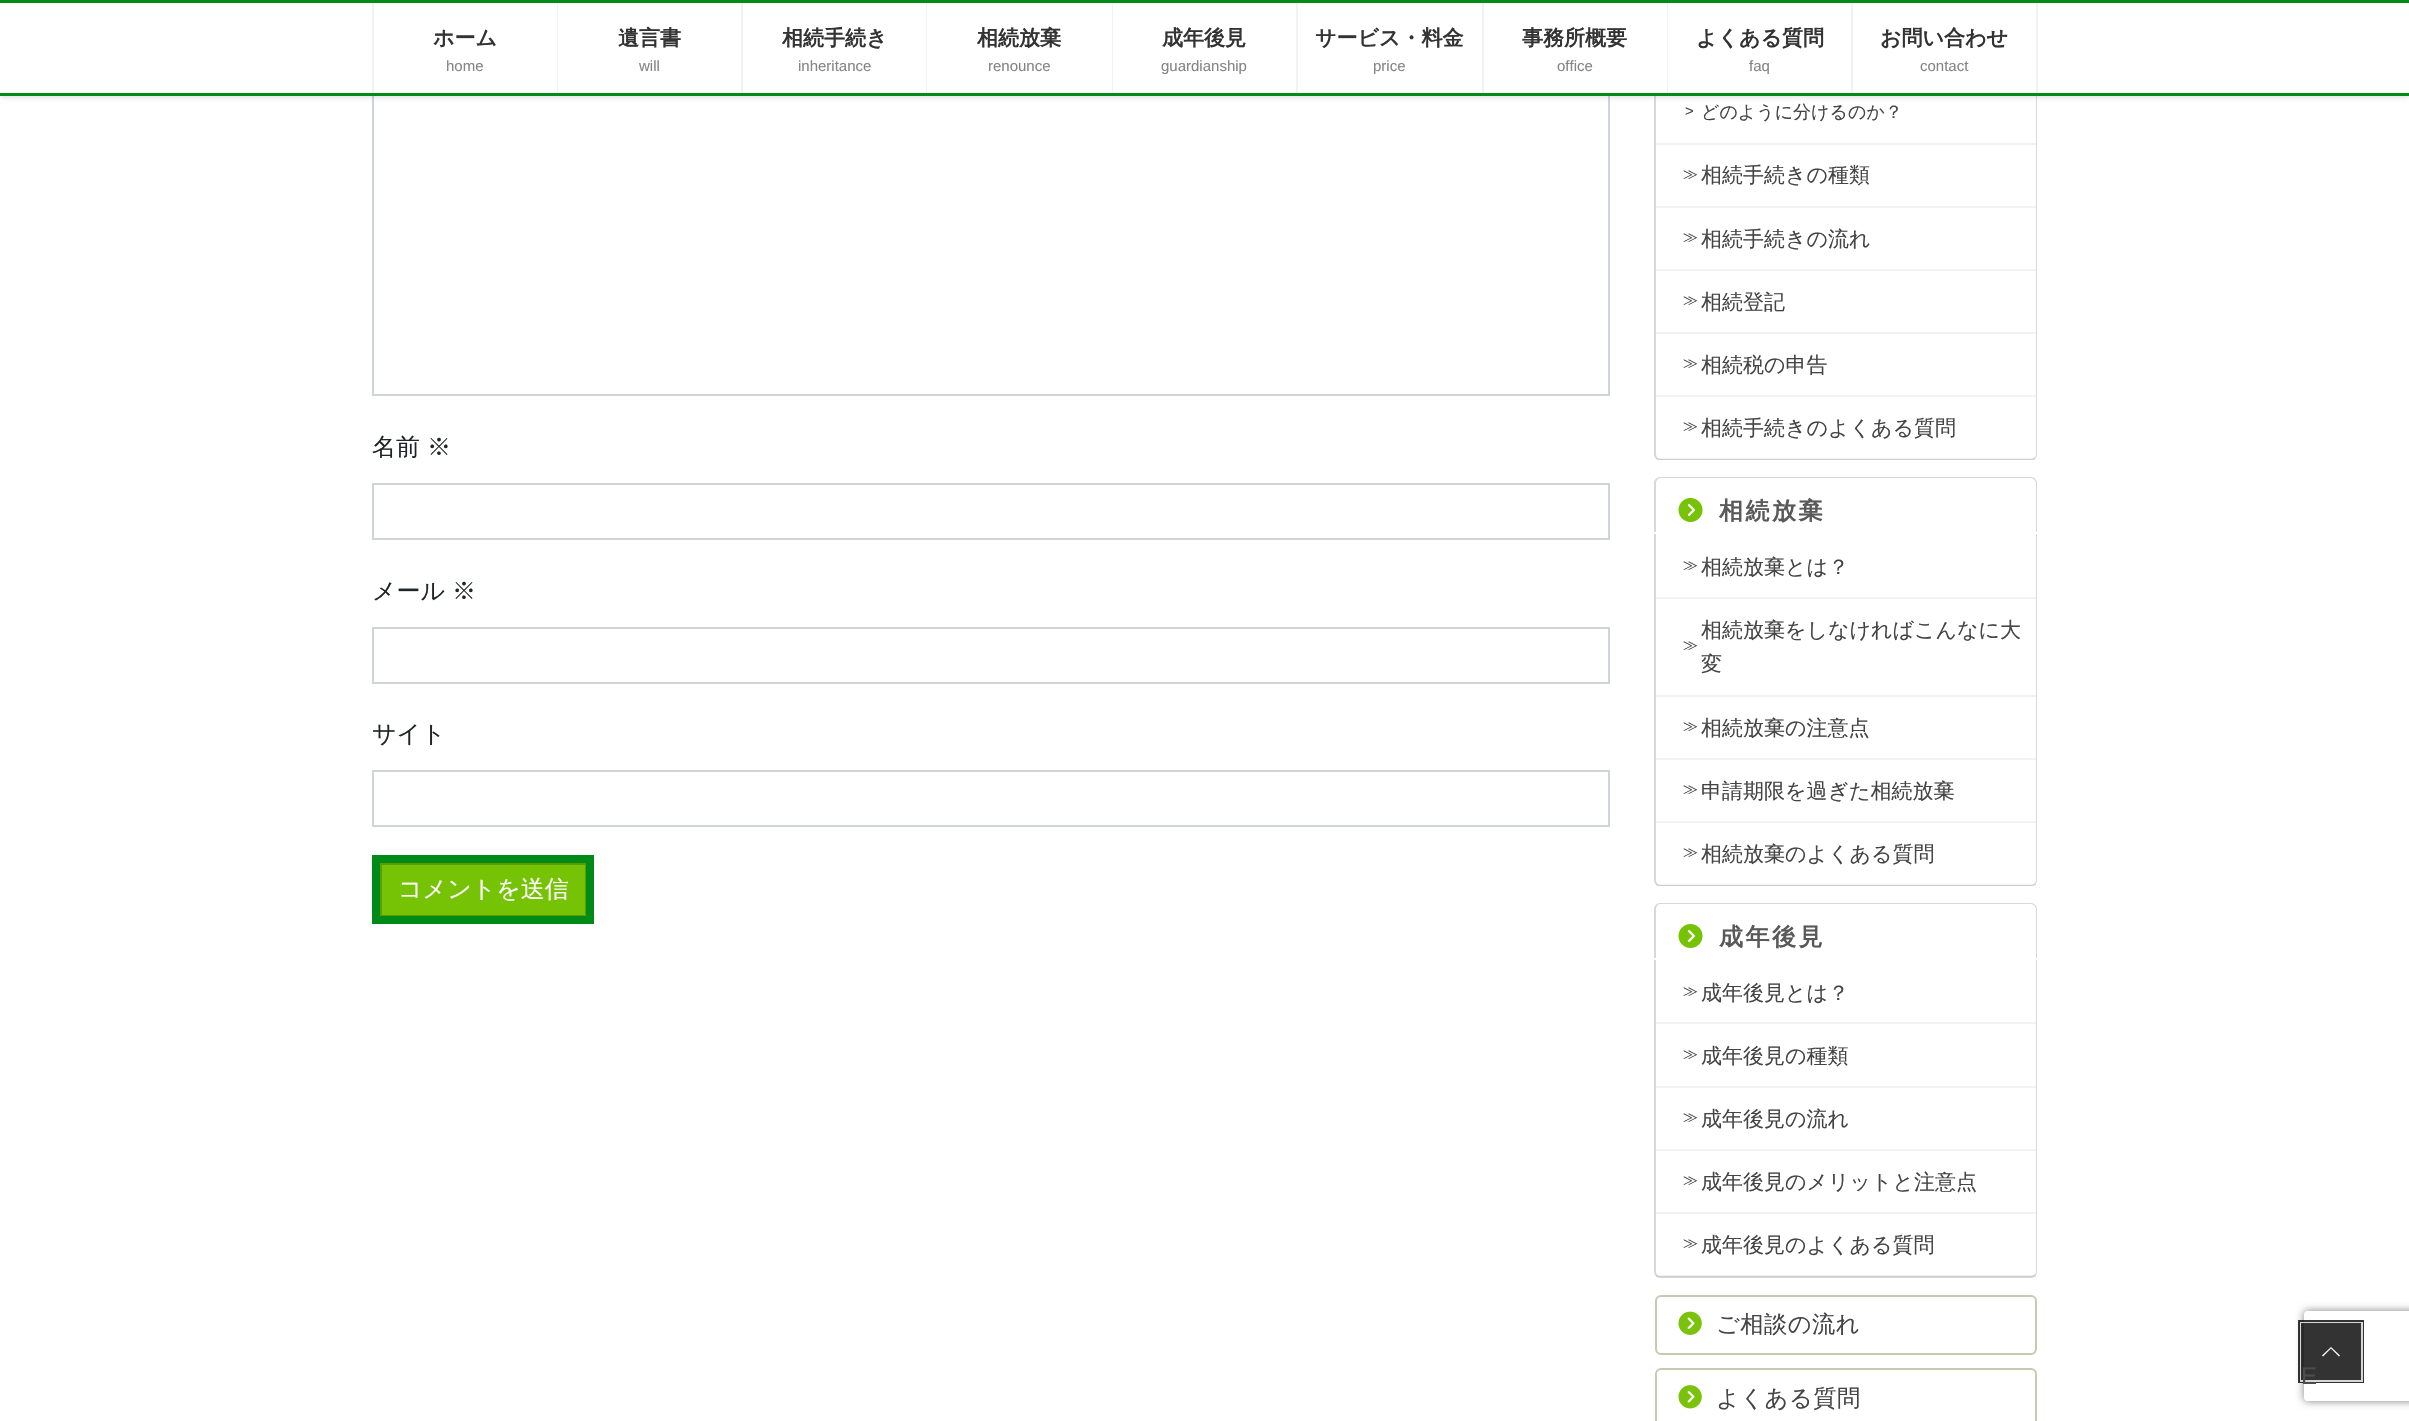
void draw(SkCanvas* canvas) {
	SkPaint paint;
	paint.setAntiAlias(true);
	auto spacedText = [&](const char* s, float x, float y, const SkFont& font, const SkPaint& ink, float letter, float word) {
		std::vector<SkGlyphID> glyphs(font.countText(s, strlen(s), SkTextEncoding::kUTF8));
		std::vector<float> xs(glyphs.size());
		font.textToGlyphs(s, strlen(s), SkTextEncoding::kUTF8, glyphs);
		font.getXPos(glyphs, xs, x);
		float extra = 0;
		for (size_t i = 0; i < glyphs.size(); i++) {
			xs[i] += extra;
			extra += letter + word * (glyphs[i] == font.unicharToGlyph(' '));
		}
		canvas->drawTextBlob(SkTextBlob::MakeFromPosHGlyphs(glyphs, xs, y, font), 0, 0, ink);
	};
	auto svgPath = [&](const char* data, bool evenOdd = false) {
		SkPath result = *SkParsePath::FromSVGString(data);
		if (evenOdd) result.setFillType(SkPathFillType::kEvenOdd);
		return result;
	};
	canvas->clear(0xffffffff);
	paint.setStroke(true);
	paint.setStrokeWidth(2);
	paint.setColor(0xffced4da);
	canvas->drawRect(SkRect::MakeXYWH(373, 88, 1236, 307), paint);
	paint.setStroke(false);
	paint.setColor(0xffd8d8d8);
	canvas->drawPath(svgPath("M1654-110H2037V454C2037 458 2034 460 2031 460H1660C1657 460 1654 458 1654 454ZM1656-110H2036V454C2036 457 2033 459 2031 459H1660C1658 459 1656 457 1656 454Z", true), paint);
	paint.setColor(0x1a000000);
	paint.setMaskFilter(SkMaskFilter::MakeBlur(kNormal_SkBlurStyle, 2));
	canvas->drawRect(SkRect::MakeXYWH(0, 2, 2409, 96), paint);
	paint.setMaskFilter(nullptr);
	paint.setColor(0xffffffff);
	canvas->drawRect(SkRect::MakeXYWH(0, 3, 2409, 90), paint);
	paint.setColor(0xff008a17);
	canvas->drawRect(SkRect::MakeXYWH(0, 0, 2409, 3), paint);
	canvas->drawRect(SkRect::MakeXYWH(0, 93, 2409, 3), paint);
	paint.setColor(0xfff2f2f2);
	canvas->drawRect(SkRect::MakeXYWH(372, 3, 2, 90), paint);
	SkFont f1(fontMgr->matchFamilyStyle("WenQuanYi Zen Hei", SkFontStyle::Bold()), 21);
	f1.setSubpixel(true);
	paint.setColor(0xff333333);
	canvas->drawString("ホーム", 433, 45, f1, paint);
	SkFont f2(fontMgr->matchFamilyStyle("Liberation Sans", SkFontStyle::Normal()), 15);
	f2.setSubpixel(true);
	paint.setColor(0xff858585);
	canvas->drawString("home", 446, 71, f2, paint);
	paint.setColor(0xfff2f2f2);
	canvas->drawRect(SkRect::MakeXYWH(557, 3, 1, 90), paint);
	paint.setColor(0xff333333);
	canvas->drawString("遺言書", 618, 45, f1, paint);
	paint.setColor(0xff858585);
	canvas->drawString("will", 639, 71, f2, paint);
	paint.setColor(0xfff2f2f2);
	canvas->drawRect(SkRect::MakeXYWH(741, 3, 2, 90), paint);
	paint.setColor(0xff333333);
	canvas->drawString("相続手続き", 782, 45, f1, paint);
	paint.setColor(0xff858585);
	canvas->drawString("inheritance", 798, 71, f2, paint);
	paint.setColor(0xfff2f2f2);
	canvas->drawRect(SkRect::MakeXYWH(926, 3, 1, 90), paint);
	paint.setColor(0xff333333);
	canvas->drawString("相続放棄", 977, 45, f1, paint);
	paint.setColor(0xff858585);
	canvas->drawString("renounce", 988, 71, f2, paint);
	paint.setColor(0xfff2f2f2);
	canvas->drawRect(SkRect::MakeXYWH(1112, 3, 1, 90), paint);
	paint.setColor(0xff333333);
	canvas->drawString("成年後見", 1162, 45, f1, paint);
	paint.setColor(0xff858585);
	canvas->drawString("guardianship", 1161, 71, f2, paint);
	paint.setColor(0xfff2f2f2);
	canvas->drawRect(SkRect::MakeXYWH(1296, 3, 2, 90), paint);
	paint.setColor(0xff333333);
	canvas->drawString("サービス・料金", 1315, 45, f1, paint);
	paint.setColor(0xff858585);
	canvas->drawString("price", 1373, 71, f2, paint);
	paint.setColor(0xfff2f2f2);
	canvas->drawRect(SkRect::MakeXYWH(1482, 3, 2, 90), paint);
	paint.setColor(0xff333333);
	canvas->drawString("事務所概要", 1522, 45, f1, paint);
	paint.setColor(0xff858585);
	canvas->drawString("office", 1557, 71, f2, paint);
	paint.setColor(0xfff2f2f2);
	canvas->drawRect(SkRect::MakeXYWH(1667, 3, 1, 90), paint);
	paint.setColor(0xff333333);
	canvas->drawString("よくある質問", 1696, 45, f1, paint);
	paint.setColor(0xff858585);
	canvas->drawString("faq", 1749, 71, f2, paint);
	paint.setColor(0xfff2f2f2);
	canvas->drawRect(SkRect::MakeXYWH(2036, 3, 2, 90), paint);
	canvas->drawRect(SkRect::MakeXYWH(1851, 3, 2, 90), paint);
	paint.setColor(0xff333333);
	canvas->drawString("お問い合わせ", 1880, 45, f1, paint);
	paint.setColor(0xff858585);
	canvas->drawString("contact", 1920, 71, f2, paint);
	SkFont f3(fontMgr->matchFamilyStyle("WenQuanYi Zen Hei", SkFontStyle(500, SkFontStyle::kNormal_Width, SkFontStyle::kUpright_Slant)), 24);
	f3.setSubpixel(true);
	paint.setColor(0xff212529);
	canvas->drawString("名前", 372, 455, f3, paint);
	canvas->drawString("※", 427, 455, f3, paint);
	paint.setStroke(true);
	paint.setColor(0xffced4da);
	canvas->drawRect(SkRect::MakeXYWH(373, 484, 1236, 55), paint);
	paint.setStroke(false);
	paint.setColor(0xff212529);
	canvas->drawString("メール", 372, 599, f3, paint);
	canvas->drawString("※", 452, 599, f3, paint);
	paint.setStroke(true);
	paint.setColor(0xffced4da);
	canvas->drawRect(SkRect::MakeXYWH(373, 628, 1236, 55), paint);
	paint.setStroke(false);
	paint.setColor(0xff212529);
	canvas->drawString("サイト", 372, 742, f3, paint);
	paint.setStroke(true);
	paint.setColor(0xffced4da);
	canvas->drawRect(SkRect::MakeXYWH(373, 771, 1236, 55), paint);
	paint.setStroke(false);
	paint.setColor(0xff76c306);
	canvas->drawRect(SkRect::MakeXYWH(381, 864, 205, 52), paint);
	paint.setStroke(true);
	paint.setColor(0xff5e9c05);
	canvas->drawRect(SkRect::MakeXYWH(381, 864, 205, 52), paint);
	paint.setStrokeWidth(8);
	paint.setColor(0xff008a17);
	canvas->drawRect(SkRect::MakeXYWH(376, 859, 214, 61), paint);
	paint.setStroke(false);
	paint.setColor(0xffffffff);
	canvas->drawString("コメントを送信", 398, 897, f3, paint);
	paint.setColor(0xfff2f2f2);
	canvas->drawRect(SkRect::MakeXYWH(1656, 143, 380, 2), paint);
	paint.setColor(0xff444444);
	canvas->drawString(">", 1685, 116, f2, paint);
	SkFont f4(fontMgr->matchFamilyStyle("WenQuanYi Zen Hei", SkFontStyle(500, SkFontStyle::kNormal_Width, SkFontStyle::kUpright_Slant)), 18);
	f4.setSubpixel(true);
	canvas->drawString("どのように分けるのか？", 1701, 118, f4, paint);
	paint.setColor(0xfff2f2f2);
	canvas->drawRect(SkRect::MakeXYWH(1656, 206, 380, 2), paint);
	SkFont f5(fontMgr->matchFamilyStyle("WenQuanYi Zen Hei", SkFontStyle(500, SkFontStyle::kNormal_Width, SkFontStyle::kUpright_Slant)), 15);
	f5.setSubpixel(true);
	paint.setColor(0xff444444);
	canvas->drawString("≫", 1683, 179, f5, paint);
	SkFont f6(fontMgr->matchFamilyStyle("WenQuanYi Zen Hei", SkFontStyle(500, SkFontStyle::kNormal_Width, SkFontStyle::kUpright_Slant)), 21);
	f6.setSubpixel(true);
	canvas->drawString("相続手続きの種類", 1701, 182, f6, paint);
	paint.setColor(0xfff2f2f2);
	canvas->drawRect(SkRect::MakeXYWH(1656, 269, 380, 2), paint);
	paint.setColor(0xff444444);
	canvas->drawString("≫", 1683, 242, f5, paint);
	canvas->drawString("相続手続きの流れ", 1701, 246, f6, paint);
	paint.setColor(0xfff2f2f2);
	canvas->drawRect(SkRect::MakeXYWH(1656, 332, 380, 2), paint);
	paint.setColor(0xff444444);
	canvas->drawString("≫", 1683, 305, f5, paint);
	canvas->drawString("相続登記", 1701, 309, f6, paint);
	paint.setColor(0xfff2f2f2);
	canvas->drawRect(SkRect::MakeXYWH(1656, 395, 380, 2), paint);
	paint.setColor(0xff444444);
	canvas->drawString("≫", 1683, 368, f5, paint);
	canvas->drawString("相続税の申告", 1701, 372, f6, paint);
	paint.setColor(0x0d000000);
	canvas->drawRect(SkRect::MakeXYWH(1656, 458, 380, 2), paint);
	paint.setColor(0xff444444);
	canvas->drawString("≫", 1683, 431, f5, paint);
	canvas->drawString("相続手続きのよくある質問", 1701, 435, f6, paint);
	paint.setColor(0xffd8d8d8);
	canvas->drawPath(svgPath("M1660 477H2031C2034 477 2037 480 2037 483V532H1654V483C1654 480 1657 477 1660 477ZM1660 478H2031C2033 478 2036 481 2036 483V532H1656V483C1656 481 1658 478 1660 478Z", true), paint);
	canvas->drawImageRect(SkImages::DeferredFromEncodedData(SkData::MakeFromFileName("img1.png")), SkRect::MakeXYWH(1678, 498, 25, 24), SkSamplingOptions());
	SkFont f7(fontMgr->matchFamilyStyle("WenQuanYi Zen Hei", SkFontStyle::Bold()), 24);
	f7.setSubpixel(true);
	paint.setColor(0xff595959);
	spacedText("相続放棄", 1719, 519, f7, paint, 2.5, 0);
	paint.setColor(0xffd8d8d8);
	canvas->drawPath(svgPath("M1654 534H2037V880C2037 884 2034 886 2031 886H1660C1657 886 1654 884 1654 880ZM1656 534H2036V880C2036 883 2033 885 2031 885H1660C1658 885 1656 883 1656 880Z", true), paint);
	paint.setColor(0xfff2f2f2);
	canvas->drawRect(SkRect::MakeXYWH(1656, 597, 380, 2), paint);
	paint.setColor(0xff444444);
	canvas->drawString("≫", 1683, 570, f5, paint);
	canvas->drawString("相続放棄とは？", 1701, 574, f6, paint);
	paint.setColor(0xfff2f2f2);
	canvas->drawRect(SkRect::MakeXYWH(1656, 695, 380, 2), paint);
	paint.setColor(0xff444444);
	canvas->drawString("相続放棄をしなければこんなに大", 1701, 637, f6, paint);
	canvas->drawString("≫", 1683, 650, f5, paint);
	canvas->drawString("変", 1701, 671, f6, paint);
	paint.setColor(0xfff2f2f2);
	canvas->drawRect(SkRect::MakeXYWH(1656, 758, 380, 2), paint);
	paint.setColor(0xff444444);
	canvas->drawString("≫", 1683, 731, f5, paint);
	canvas->drawString("相続放棄の注意点", 1701, 735, f6, paint);
	paint.setColor(0xfff2f2f2);
	canvas->drawRect(SkRect::MakeXYWH(1656, 821, 380, 2), paint);
	paint.setColor(0xff444444);
	canvas->drawString("≫", 1683, 794, f5, paint);
	canvas->drawString("申請期限を過ぎた相続放棄", 1701, 798, f6, paint);
	paint.setColor(0x0d000000);
	canvas->drawRect(SkRect::MakeXYWH(1656, 884, 380, 2), paint);
	paint.setColor(0xff444444);
	canvas->drawString("≫", 1683, 857, f5, paint);
	canvas->drawString("相続放棄のよくある質問", 1701, 861, f6, paint);
	paint.setColor(0xffd8d8d8);
	canvas->drawPath(svgPath("M1660 903H2031C2034 903 2037 906 2037 909V958H1654V909C1654 906 1657 903 1660 903ZM1660 904H2031C2033 904 2036 907 2036 909V958H1656V909C1656 907 1658 904 1660 904Z", true), paint);
	canvas->drawImageRect(SkImages::DeferredFromEncodedData(SkData::MakeFromFileName("img1.png")), SkRect::MakeXYWH(1678, 924, 25, 24), SkSamplingOptions());
	paint.setColor(0xff595959);
	spacedText("成年後見", 1719, 945, f7, paint, 2.5, 0);
	paint.setColor(0xffd8d8d8);
	canvas->drawPath(svgPath("M1654 960H2037V1272C2037 1275 2034 1278 2031 1278H1660C1657 1278 1654 1275 1654 1272ZM1656 960H2036V1272C2036 1274 2033 1276 2031 1276H1660C1658 1276 1656 1274 1656 1272Z", true), paint);
	paint.setColor(0xfff2f2f2);
	canvas->drawRect(SkRect::MakeXYWH(1656, 1022, 380, 2), paint);
	paint.setColor(0xff444444);
	canvas->drawString("≫", 1683, 996, f5, paint);
	canvas->drawString("成年後見とは？", 1701, 1000, f6, paint);
	paint.setColor(0xfff2f2f2);
	canvas->drawRect(SkRect::MakeXYWH(1656, 1086, 380, 2), paint);
	paint.setColor(0xff444444);
	canvas->drawString("≫", 1683, 1059, f5, paint);
	canvas->drawString("成年後見の種類", 1701, 1063, f6, paint);
	paint.setColor(0xfff2f2f2);
	canvas->drawRect(SkRect::MakeXYWH(1656, 1149, 380, 2), paint);
	paint.setColor(0xff444444);
	canvas->drawString("≫", 1683, 1122, f5, paint);
	canvas->drawString("成年後見の流れ", 1701, 1126, f6, paint);
	paint.setColor(0xfff2f2f2);
	canvas->drawRect(SkRect::MakeXYWH(1656, 1212, 380, 2), paint);
	paint.setColor(0xff444444);
	canvas->drawString("≫", 1683, 1185, f5, paint);
	canvas->drawString("成年後見のメリットと注意点", 1701, 1189, f6, paint);
	paint.setColor(0x0d000000);
	canvas->drawRect(SkRect::MakeXYWH(1656, 1275, 380, 2), paint);
	paint.setColor(0xff444444);
	canvas->drawString("≫", 1683, 1248, f5, paint);
	canvas->drawString("成年後見のよくある質問", 1701, 1252, f6, paint);
	paint.setStroke(true);
	paint.setStrokeWidth(2);
	paint.setColor(0xffc9c8b2);
	canvas->drawRoundRect(SkRect::MakeXYWH(1656, 1296, 380, 58), 5, 5, paint);
	canvas->drawImageRect(SkImages::DeferredFromEncodedData(SkData::MakeFromFileName("img2.png")), SkRect::MakeXYWH(1678, 1311, 24, 24), SkSamplingOptions());
	SkFont f8(fontMgr->matchFamilyStyle("WenQuanYi Zen Hei", SkFontStyle(500, SkFontStyle::kNormal_Width, SkFontStyle::kUpright_Slant)), 23.25);
	f8.setSubpixel(true);
	paint.setStroke(false);
	paint.setColor(0xff444444);
	spacedText("ご相談の流れ", 1716, 1332, f8, paint, 0.5, 0);
	paint.setStroke(true);
	paint.setColor(0xffc9c8b2);
	canvas->drawRoundRect(SkRect::MakeXYWH(1656, 1369, 380, 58), 5, 5, paint);
	canvas->drawImageRect(SkImages::DeferredFromEncodedData(SkData::MakeFromFileName("img3.png")), SkRect::MakeXYWH(1678, 1385, 24, 24), SkSamplingOptions());
	paint.setStroke(false);
	paint.setColor(0xff444444);
	spacedText("よくある質問", 1716, 1406, f8, paint, 0.5, 0);
	canvas->save();
	canvas->clipPath(svgPath("M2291 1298H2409V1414H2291ZM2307 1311H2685C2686.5 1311 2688 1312.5 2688 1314V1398C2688 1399.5 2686.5 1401 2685 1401H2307C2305.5 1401 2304 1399.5 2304 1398V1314C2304 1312.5 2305.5 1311 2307 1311Z", true), true);
	paint.setColor(0xff808080);
	paint.setMaskFilter(SkMaskFilter::MakeBlur(kNormal_SkBlurStyle, 4));
	canvas->drawRoundRect(SkRect::MakeXYWH(2304, 1311, 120, 90), 3, 3, paint);
	paint.setMaskFilter(nullptr);
	canvas->restore();
	paint.setStroke(true);
	paint.setStrokeWidth(3);
	paint.setColor(0xcc000000);
	canvas->drawRect(SkRect::MakeXYWH(2299.5, 1321.5, 63, 60), paint);
	paint.setStrokeWidth(2);
	paint.setColor(0xccffffff);
	canvas->drawRect(SkRect::MakeXYWH(2301, 1323, 61, 58), paint);
	paint.setStroke(false);
	paint.setColor(0xcc000000);
	canvas->drawRect(SkRect::MakeXYWH(2301, 1323, 60, 57), paint);
	paint.setColor(0xffffffff);
	canvas->drawPath(svgPath("M2340 1355.5L2339 1356.5L2331 1348.5L2323 1356.5L2322 1355.5L2331 1347Z"), paint);
	SkFont f9(fontMgr->matchFamilyStyle("Liberation Sans", SkFontStyle::Normal()), 24);
	f9.setSubpixel(true);
	paint.setColor(0xff4d4d4d);
	canvas->drawString("E", 2301, 1384, f9, paint);
}
